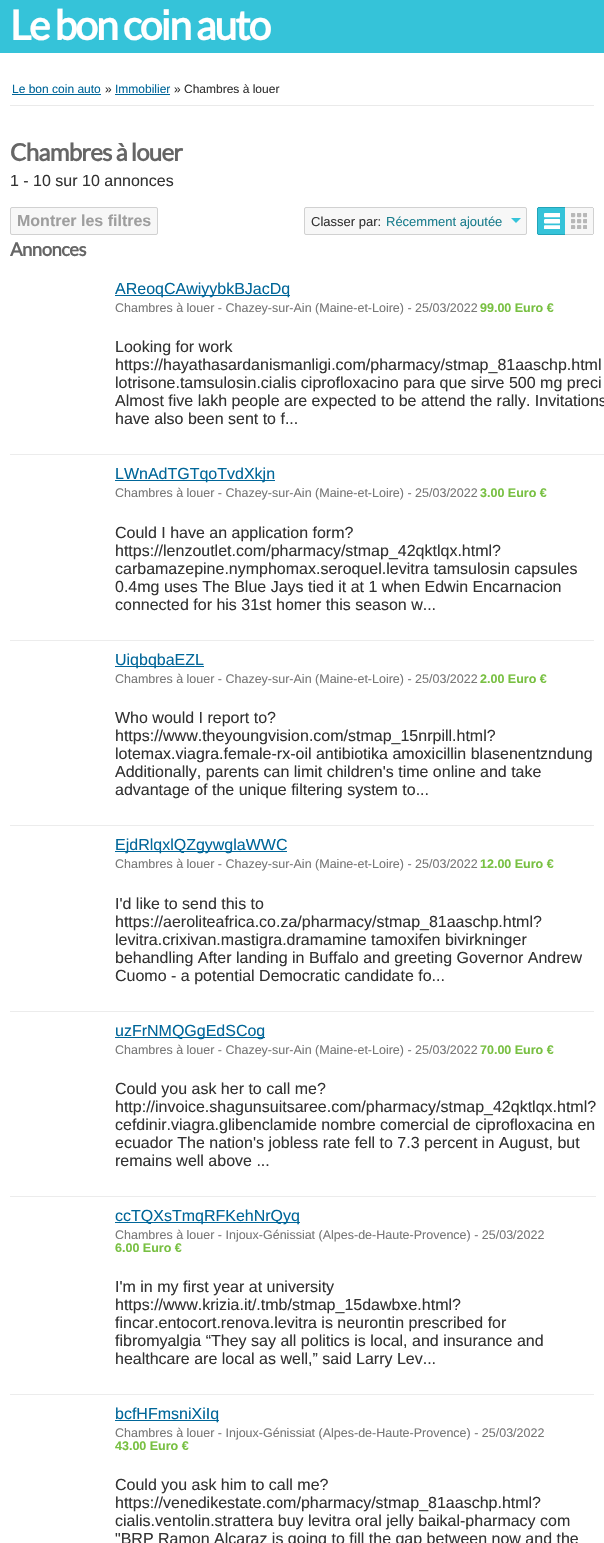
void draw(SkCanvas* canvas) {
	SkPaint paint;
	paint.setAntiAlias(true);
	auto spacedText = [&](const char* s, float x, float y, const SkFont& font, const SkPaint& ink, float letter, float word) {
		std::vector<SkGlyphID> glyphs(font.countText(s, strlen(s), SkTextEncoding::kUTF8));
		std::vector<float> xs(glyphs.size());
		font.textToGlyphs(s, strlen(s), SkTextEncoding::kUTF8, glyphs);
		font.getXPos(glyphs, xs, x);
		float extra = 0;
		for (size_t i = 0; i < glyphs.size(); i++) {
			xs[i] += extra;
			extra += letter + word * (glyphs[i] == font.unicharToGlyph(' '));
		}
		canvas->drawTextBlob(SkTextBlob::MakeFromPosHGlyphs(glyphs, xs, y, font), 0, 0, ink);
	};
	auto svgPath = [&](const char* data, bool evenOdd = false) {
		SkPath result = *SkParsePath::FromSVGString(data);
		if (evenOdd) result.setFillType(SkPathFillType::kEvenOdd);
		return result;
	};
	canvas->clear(0xffffffff);
	paint.setColor(0xff35c3d9);
	canvas->drawRect(SkRect::MakeXYWH(0, 0, 604, 53), paint);
	SkFont f1(fontMgr->matchFamilyStyle("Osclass", SkFontStyle::Bold()), 40.75);
	f1.setSubpixel(true);
	paint.setColor(0xffffffff);
	spacedText("Le bon coin auto", 10, 40, f1, paint, -1.9, 0);
	paint.setColor(0xffeaeaea);
	canvas->drawRect(SkRect::MakeXYWH(10, 105, 584, 1), paint);
	SkFont f2(fontMgr->matchFamilyStyle("Liberation Sans", SkFontStyle::Normal()), 12);
	f2.setSubpixel(true);
	paint.setColor(0xff006699);
	canvas->drawString("Le bon coin auto", 12, 93, f2, paint);
	canvas->drawRect(SkRect::MakeXYWH(12, 94, 89, 1), paint);
	paint.setColor(0xff333333);
	canvas->drawString("»", 105, 93, f2, paint);
	paint.setColor(0xff006699);
	canvas->drawString("Immobilier", 115, 93, f2, paint);
	canvas->drawRect(SkRect::MakeXYWH(115, 94, 55, 1), paint);
	paint.setColor(0xff333333);
	canvas->drawString("» Chambres à louer", 174, 93, f2, paint);
	SkFont f3(fontMgr->matchFamilyStyle("Osclass", SkFontStyle::Bold()), 24);
	f3.setSubpixel(true);
	paint.setColor(0xff666666);
	spacedText("Chambres à louer", 10, 161, f3, paint, -0.75, 0);
	SkFont f4(fontMgr->matchFamilyStyle("Liberation Sans", SkFontStyle::Normal()), 16);
	f4.setSubpixel(true);
	paint.setColor(0xff333333);
	canvas->drawString("1 - 10 sur 10 annonces", 10, 186, f4, paint);
	paint.setColor(0xfff7f7f7);
	canvas->drawRoundRect(SkRect::MakeXYWH(10.5, 207.5, 147, 27), 1.5, 1.5, paint);
	paint.setStroke(true);
	paint.setStrokeWidth(1);
	paint.setColor(0xffd1d1d1);
	canvas->drawRoundRect(SkRect::MakeXYWH(10.5, 207.5, 147, 27), 1.5, 1.5, paint);
	SkFont f5(fontMgr->matchFamilyStyle("Liberation Sans", SkFontStyle::Bold()), 16);
	f5.setSubpixel(true);
	paint.setStroke(false);
	paint.setColor(0xff9e9e9e);
	canvas->drawString("Montrer les filtres", 17, 226, f5, paint);
	paint.setColor(0xfff7f7f7);
	canvas->drawRoundRect(SkRect::MakeXYWH(304.5, 207.5, 222, 27), 1.5, 1.5, paint);
	paint.setStroke(true);
	paint.setColor(0xffd1d1d1);
	canvas->drawRoundRect(SkRect::MakeXYWH(304.5, 207.5, 222, 27), 1.5, 1.5, paint);
	SkFont f6(fontMgr->matchFamilyStyle("Liberation Sans", SkFontStyle::Normal()), 13);
	f6.setSubpixel(true);
	paint.setStroke(false);
	paint.setColor(0xff333333);
	canvas->drawString("Classer par:", 311, 226, f6, paint);
	paint.setColor(0xff1b7e8d);
	canvas->drawString("Récemment ajoutée", 386, 226, f6, paint);
	paint.setColor(0xff35c3d9);
	canvas->drawPath(svgPath("M511 218H521L516 223Z"), paint);
	canvas->drawPath(svgPath("M539 207H566V235H539C538 235 537 234 537 233V209C537 208 538 207 539 207Z"), paint);
	paint.setColor(0xff23a4b8);
	canvas->drawRect(SkRect::MakeXYWH(538, 207, 28, 1), paint);
	canvas->drawRect(SkRect::MakeXYWH(538, 234, 28, 1), paint);
	canvas->drawRect(SkRect::MakeXYWH(537, 208, 1, 26), paint);
	canvas->drawImageRect(SkImages::DeferredFromEncodedData(SkData::MakeFromFileName("img1.png")), SkRect::MakeXYWH(544, 213, 16, 16), SkSamplingOptions());
	paint.setColor(0xfff7f7f7);
	canvas->drawPath(svgPath("M565 207H592C593 207 594 208 594 209V233C594 234 593 235 592 235H565Z"), paint);
	paint.setColor(0xffd1d1d1);
	canvas->drawRect(SkRect::MakeXYWH(565, 207, 28, 1), paint);
	canvas->drawRect(SkRect::MakeXYWH(593, 208, 1, 26), paint);
	canvas->drawRect(SkRect::MakeXYWH(565, 234, 28, 1), paint);
	canvas->drawImageRect(SkImages::DeferredFromEncodedData(SkData::MakeFromFileName("img2.png")), SkRect::MakeXYWH(571, 213, 16, 16), SkSamplingOptions());
	SkFont f7(fontMgr->matchFamilyStyle("Osclass", SkFontStyle::Bold()), 18.5);
	f7.setSubpixel(true);
	paint.setColor(0xff666666);
	spacedText("Annonces", 10, 256, f7, paint, -0.5, 0);
	paint.setColor(0xffececec);
	canvas->drawRect(SkRect::MakeXYWH(10, 454, 594, 1), paint);
	paint.setColor(0xff006699);
	canvas->drawRect(SkRect::MakeXYWH(115, 295, 175, 1), paint);
	canvas->drawString("AReoqCAwiyybkBJacDq", 115, 294, f4, paint);
	SkFont f8(fontMgr->matchFamilyStyle("Liberation Sans", SkFontStyle::Normal()), 12.5);
	f8.setSubpixel(true);
	paint.setColor(0xff777777);
	canvas->drawString("Chambres à louer - Chazey-sur-Ain (Maine-et-Loire) - 25/03/2022", 115, 312, f8, paint);
	SkFont f9(fontMgr->matchFamilyStyle("Liberation Sans", SkFontStyle::Bold()), 12.5);
	f9.setSubpixel(true);
	paint.setColor(0xff78c042);
	canvas->drawString("99.00 Euro €", 480, 312, f9, paint);
	paint.setColor(0xff333333);
	canvas->drawString("Looking for work", 115, 352, f4, paint);
	canvas->drawString("https://hayathasardanismanligi.com/pharmacy/stmap_81aaschp.html", 115, 370, f4, paint);
	canvas->drawString("lotrisone.tamsulosin.cialis ciprofloxacino para que sirve 500 mg preci", 115, 388, f4, paint);
	canvas->drawString("Almost five lakh people are expected to be attend the rally. Invitations", 115, 406, f4, paint);
	canvas->drawString("have also been sent to f...", 115, 424, f4, paint);
	paint.setColor(0xffececec);
	canvas->drawRect(SkRect::MakeXYWH(10, 640, 584, 1), paint);
	paint.setColor(0xff006699);
	canvas->drawRect(SkRect::MakeXYWH(115, 480, 160, 1), paint);
	canvas->drawString("LWnAdTGTqoTvdXkjn", 115, 479, f4, paint);
	paint.setColor(0xff777777);
	canvas->drawString("Chambres à louer - Chazey-sur-Ain (Maine-et-Loire) - 25/03/2022", 115, 497, f8, paint);
	paint.setColor(0xff78c042);
	canvas->drawString("3.00 Euro €", 480, 497, f9, paint);
	paint.setColor(0xff333333);
	canvas->drawString("Could I have an application form?", 115, 538, f4, paint);
	canvas->drawString("https://lenzoutlet.com/pharmacy/stmap_42qktlqx.html?", 115, 556, f4, paint);
	canvas->drawString("carbamazepine.nymphomax.seroquel.levitra tamsulosin capsules", 115, 574, f4, paint);
	canvas->drawString("0.4mg uses The Blue Jays tied it at 1 when Edwin Encarnacion", 115, 592, f4, paint);
	canvas->drawString("connected for his 31st homer this season w...", 115, 610, f4, paint);
	paint.setColor(0xffececec);
	canvas->drawRect(SkRect::MakeXYWH(10, 825, 584, 1), paint);
	paint.setColor(0xff006699);
	canvas->drawRect(SkRect::MakeXYWH(115, 666, 89, 1), paint);
	canvas->drawString("UiqbqbaEZL", 115, 665, f4, paint);
	paint.setColor(0xff777777);
	canvas->drawString("Chambres à louer - Chazey-sur-Ain (Maine-et-Loire) - 25/03/2022", 115, 683, f8, paint);
	paint.setColor(0xff78c042);
	canvas->drawString("2.00 Euro €", 480, 683, f9, paint);
	paint.setColor(0xff333333);
	canvas->drawString("Who would I report to?", 115, 723, f4, paint);
	canvas->drawString("https://www.theyoungvision.com/stmap_15nrpill.html?", 115, 741, f4, paint);
	canvas->drawString("lotemax.viagra.female-rx-oil antibiotika amoxicillin blasenentzndung", 115, 759, f4, paint);
	canvas->drawString("Additionally, parents can limit children's time online and take", 115, 777, f4, paint);
	canvas->drawString("advantage of the unique filtering system to...", 115, 795, f4, paint);
	paint.setColor(0xffececec);
	canvas->drawRect(SkRect::MakeXYWH(10, 1011, 584, 1), paint);
	paint.setColor(0xff006699);
	canvas->drawRect(SkRect::MakeXYWH(115, 851, 172, 1), paint);
	canvas->drawString("EjdRlqxlQZgywglaWWC", 115, 850, f4, paint);
	paint.setColor(0xff777777);
	canvas->drawString("Chambres à louer - Chazey-sur-Ain (Maine-et-Loire) - 25/03/2022", 115, 868, f8, paint);
	paint.setColor(0xff78c042);
	canvas->drawString("12.00 Euro €", 480, 868, f9, paint);
	paint.setColor(0xff333333);
	canvas->drawString("I'd like to send this to", 115, 909, f4, paint);
	canvas->drawString("https://aeroliteafrica.co.za/pharmacy/stmap_81aaschp.html?", 115, 927, f4, paint);
	canvas->drawString("levitra.crixivan.mastigra.dramamine tamoxifen bivirkninger", 115, 945, f4, paint);
	canvas->drawString("behandling After landing in Buffalo and greeting Governor Andrew", 115, 963, f4, paint);
	canvas->drawString("Cuomo - a potential Democratic candidate fo...", 115, 981, f4, paint);
	paint.setColor(0xffececec);
	canvas->drawRect(SkRect::MakeXYWH(10, 1196, 586, 1), paint);
	paint.setColor(0xff006699);
	canvas->drawRect(SkRect::MakeXYWH(115, 1037, 150, 1), paint);
	canvas->drawString("uzFrNMQGgEdSCog", 115, 1036, f4, paint);
	paint.setColor(0xff777777);
	canvas->drawString("Chambres à louer - Chazey-sur-Ain (Maine-et-Loire) - 25/03/2022", 115, 1054, f8, paint);
	paint.setColor(0xff78c042);
	canvas->drawString("70.00 Euro €", 480, 1054, f9, paint);
	paint.setColor(0xff333333);
	canvas->drawString("Could you ask her to call me?", 115, 1094, f4, paint);
	canvas->drawString("http://invoice.shagunsuitsaree.com/pharmacy/stmap_42qktlqx.html?", 115, 1112, f4, paint);
	canvas->drawString("cefdinir.viagra.glibenclamide nombre comercial de ciprofloxacina en", 115, 1130, f4, paint);
	canvas->drawString("ecuador The nation's jobless rate fell to 7.3 percent in August, but", 115, 1148, f4, paint);
	canvas->drawString("remains well above ...", 115, 1166, f4, paint);
	paint.setColor(0xffececec);
	canvas->drawRect(SkRect::MakeXYWH(10, 1394, 584, 1), paint);
	paint.setColor(0xff006699);
	canvas->drawRect(SkRect::MakeXYWH(115, 1222, 185, 1), paint);
	canvas->drawString("ccTQXsTmqRFKehNrQyq", 115, 1221, f4, paint);
	paint.setColor(0xff777777);
	canvas->drawString("Chambres à louer - Injoux-Génissiat (Alpes-de-Haute-Provence) - 25/03/2022", 115, 1239, f8, paint);
	paint.setColor(0xff78c042);
	canvas->drawString("6.00 Euro €", 115, 1252, f9, paint);
	paint.setColor(0xff333333);
	canvas->drawString("I'm in my first year at university", 115, 1292, f4, paint);
	canvas->drawString("https://www.krizia.it/.tmb/stmap_15dawbxe.html?", 115, 1310, f4, paint);
	canvas->drawString("fincar.entocort.renova.levitra is neurontin prescribed for", 115, 1328, f4, paint);
	canvas->drawString("fibromyalgia “They say all politics is local, and insurance and", 115, 1346, f4, paint);
	canvas->drawString("healthcare are local as well,” said Larry Lev...", 115, 1364, f4, paint);
	paint.setColor(0xff006699);
	canvas->drawRect(SkRect::MakeXYWH(115, 1420, 104, 1), paint);
	canvas->drawString("bcfHFmsniXiIq", 115, 1419, f4, paint);
	paint.setColor(0xff777777);
	canvas->drawString("Chambres à louer - Injoux-Génissiat (Alpes-de-Haute-Provence) - 25/03/2022", 115, 1437, f8, paint);
	paint.setColor(0xff78c042);
	canvas->drawString("43.00 Euro €", 115, 1450, f9, paint);
	paint.setColor(0xff333333);
	canvas->drawString("Could you ask him to call me?", 115, 1490, f4, paint);
	canvas->drawString("https://venedikestate.com/pharmacy/stmap_81aaschp.html?", 115, 1508, f4, paint);
	canvas->drawString("cialis.ventolin.strattera buy levitra oral jelly baikal-pharmacy com", 115, 1526, f4, paint);
	canvas->drawString("\"BRP Ramon Alcaraz is going to fill the gap between now and the", 115, 1544, f4, paint);
}
